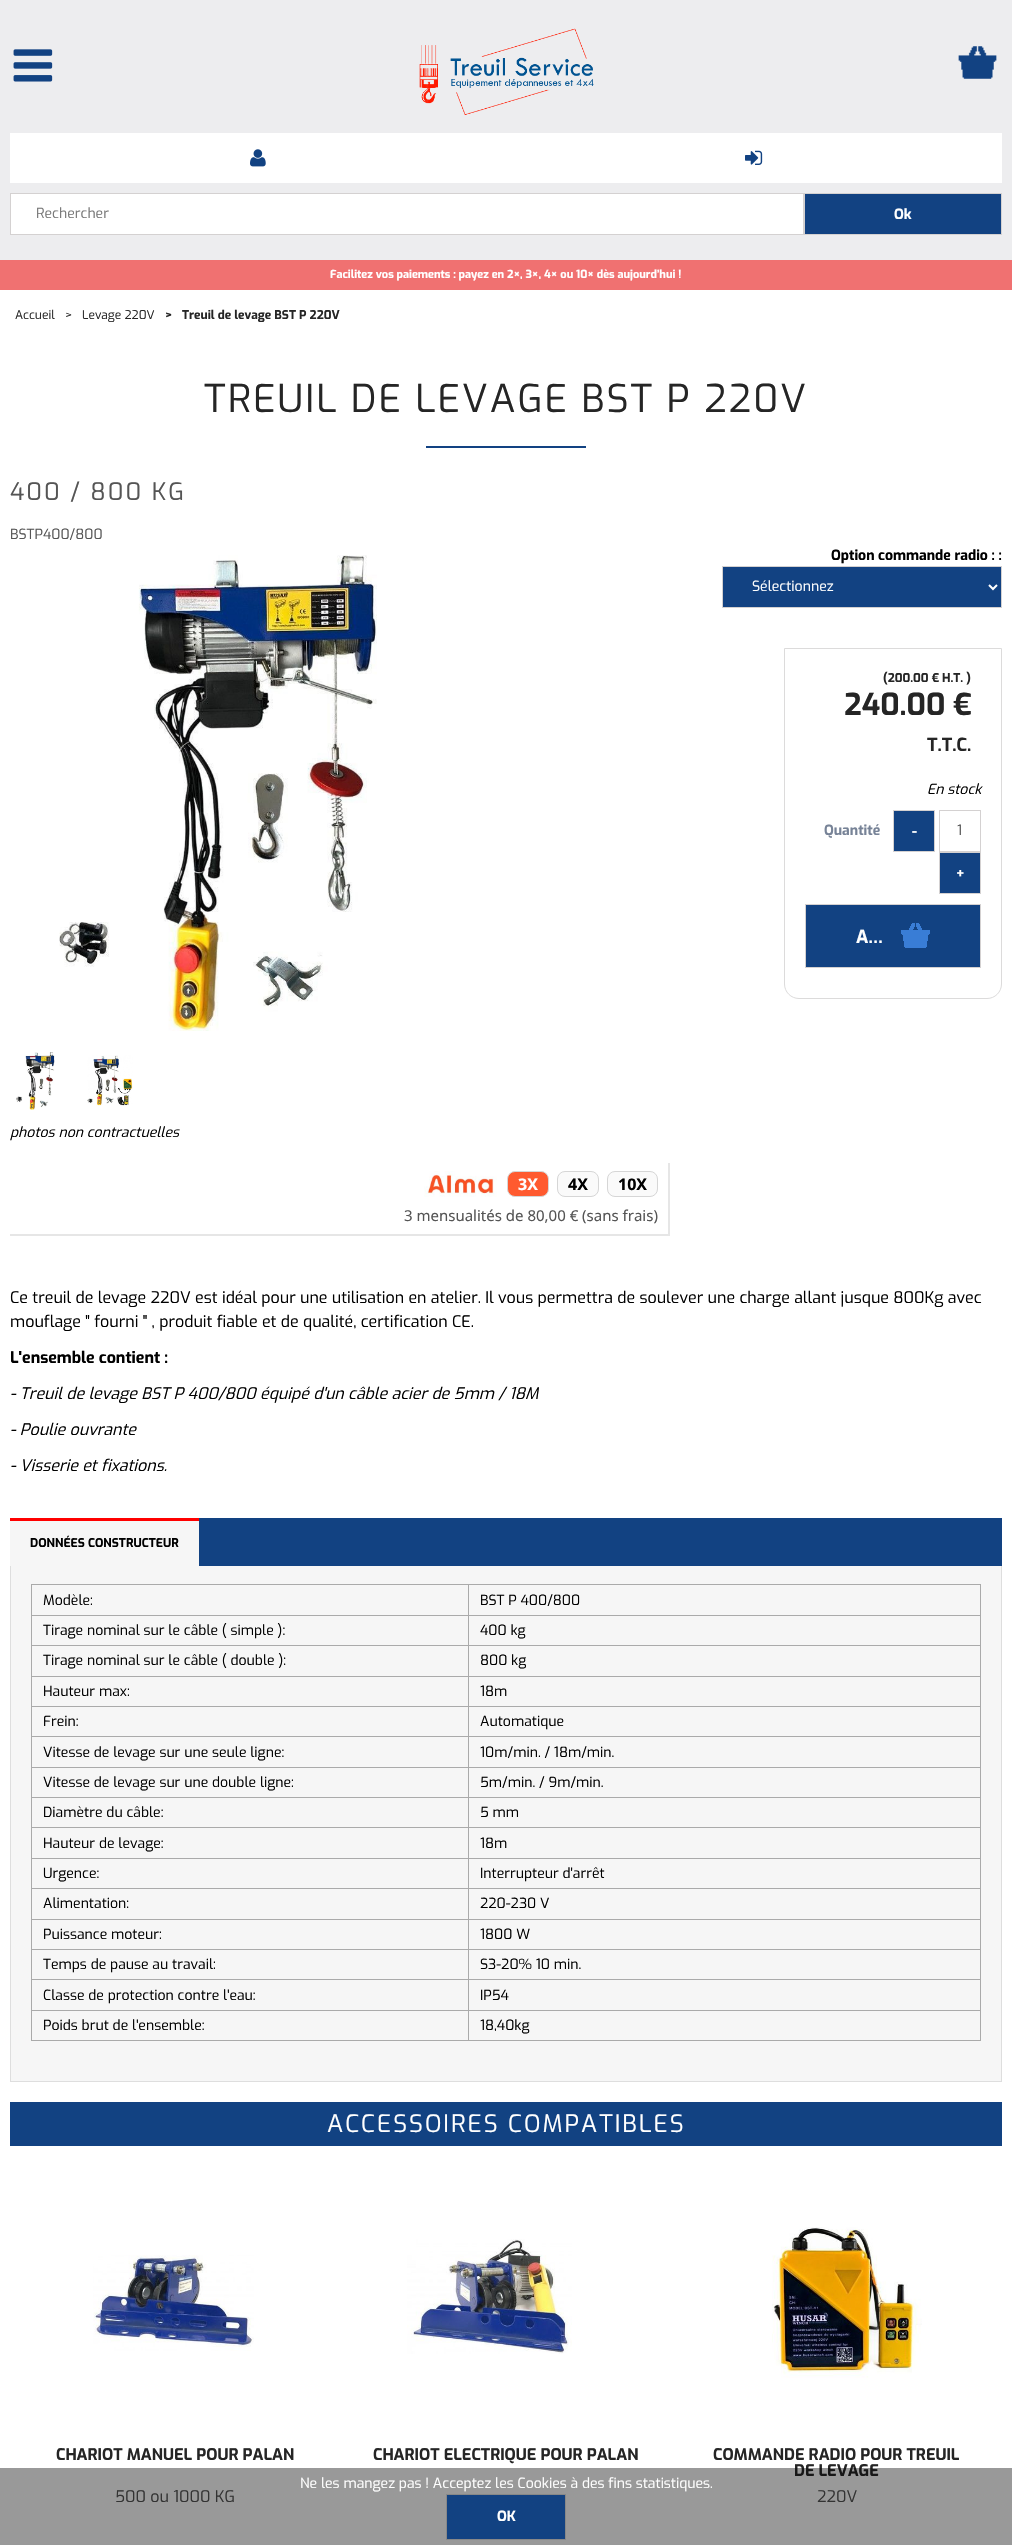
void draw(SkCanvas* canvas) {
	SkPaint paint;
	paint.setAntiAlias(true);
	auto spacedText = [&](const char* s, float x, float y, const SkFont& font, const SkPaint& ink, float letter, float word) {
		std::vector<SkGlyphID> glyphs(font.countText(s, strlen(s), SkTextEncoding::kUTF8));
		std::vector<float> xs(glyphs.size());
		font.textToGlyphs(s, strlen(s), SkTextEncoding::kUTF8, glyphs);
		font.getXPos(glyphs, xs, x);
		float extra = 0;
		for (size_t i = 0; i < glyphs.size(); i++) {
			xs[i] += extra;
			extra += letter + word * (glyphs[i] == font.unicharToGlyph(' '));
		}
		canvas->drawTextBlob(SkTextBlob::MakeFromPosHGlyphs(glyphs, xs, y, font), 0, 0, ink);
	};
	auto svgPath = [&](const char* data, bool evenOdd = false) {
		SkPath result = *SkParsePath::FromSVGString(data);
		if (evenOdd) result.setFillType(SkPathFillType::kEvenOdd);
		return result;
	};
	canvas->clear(0xffffffff);
	paint.setColor(0xffededef);
	canvas->drawRect(SkRect::MakeXYWH(0, 0, 1012, 260), paint);
	canvas->drawImageRect(SkImages::DeferredFromEncodedData(SkData::MakeFromFileName("img1.png")), SkRect::MakeXYWH(419, 28, 175, 87), SkSamplingOptions());
	paint.setColor(0xffffffff);
	canvas->drawRect(SkRect::MakeXYWH(10, 133, 992, 50), paint);
	canvas->drawImageRect(SkImages::DeferredFromEncodedData(SkData::MakeFromFileName("img2.png")), SkRect::MakeXYWH(958, 46, 39, 33), SkSamplingOptions());
	canvas->drawImageRect(SkImages::DeferredFromEncodedData(SkData::MakeFromFileName("img3.png")), SkRect::MakeXYWH(250, 149, 16, 18), SkSamplingOptions());
	canvas->drawImageRect(SkImages::DeferredFromEncodedData(SkData::MakeFromFileName("img4.png")), SkRect::MakeXYWH(745, 150, 18, 15), SkSamplingOptions());
	canvas->drawImageRect(SkImages::DeferredFromEncodedData(SkData::MakeFromFileName("img5.png")), SkRect::MakeXYWH(13, 49, 40, 33), SkSamplingOptions());
	canvas->drawRect(SkRect::MakeXYWH(10.5, 193.5, 793, 41), paint);
	paint.setStroke(true);
	paint.setStrokeWidth(1);
	paint.setColor(0xffd4d1d1);
	canvas->drawRect(SkRect::MakeXYWH(10.5, 193.5, 793, 41), paint);
	SkFont f1(fontMgr->matchFamilyStyle("Exo", SkFontStyle::Normal()), 14);
	f1.setSubpixel(true);
	paint.setStroke(false);
	paint.setColor(0xff777777);
	canvas->drawString("Rechercher", 36, 218, f1, paint);
	paint.setColor(0xff124282);
	canvas->drawRect(SkRect::MakeXYWH(804.5, 193.5, 197, 41), paint);
	paint.setStroke(true);
	paint.setColor(0xffd4d1d1);
	canvas->drawRect(SkRect::MakeXYWH(804.5, 193.5, 197, 41), paint);
	SkFont f2(fontMgr->matchFamilyStyle("Exo", SkFontStyle::Bold()), 14);
	f2.setSubpixel(true);
	paint.setStroke(false);
	paint.setColor(0xffffffff);
	canvas->drawString("Ok", 894, 219, f2, paint);
	paint.setColor(0xfff07171);
	canvas->drawRect(SkRect::MakeXYWH(0, 260, 1012, 30), paint);
	SkFont f3(fontMgr->matchFamilyStyle("Exo", SkFontStyle::Bold()), 11);
	f3.setSubpixel(true);
	paint.setColor(0xffffffff);
	canvas->drawString("Facilitez vos paiements : payez en 2×, 3×, 4× ou 10× dès aujourd’hui !", 330, 278, f3, paint);
	SkFont f4(fontMgr->matchFamilyStyle("Exo", SkFontStyle::Normal()), 12);
	f4.setSubpixel(true);
	paint.setColor(0xff252525);
	canvas->drawString("Accueil", 15, 319, f4, paint);
	canvas->drawString(">", 65, 319, f4, paint);
	canvas->drawString("Levage 220V", 82, 319, f4, paint);
	SkFont f5(fontMgr->matchFamilyStyle("Exo", SkFontStyle::Bold()), 12);
	f5.setSubpixel(true);
	canvas->drawString(">", 165, 319, f5, paint);
	canvas->drawString("Treuil de levage BST P 220V", 182, 319, f5, paint);
	SkFont f6(fontMgr->matchFamilyStyle("Exo", SkFontStyle::Normal()), 38.25);
	f6.setSubpixel(true);
	spacedText("TREUIL DE LEVAGE BST P 220V", 204, 412, f6, paint, 2, 0);
	paint.setColor(0xff124282);
	canvas->drawRect(SkRect::MakeXYWH(426, 446, 160, 2), paint);
	SkFont f7(fontMgr->matchFamilyStyle("Exo", SkFontStyle::Normal()), 24);
	f7.setSubpixel(true);
	paint.setColor(0xff555555);
	spacedText("400 / 800 KG", 10, 500, f7, paint, 2, 0);
	canvas->drawString("BSTP400/800", 10, 539, f1, paint);
	paint.setColor(0xff000000);
	canvas->drawString("Option commande radio : :", 831, 560, f2, paint);
	paint.setColor(0xff124282);
	canvas->drawRect(SkRect::MakeXYWH(722.5, 566.5, 279, 41), paint);
	paint.setStroke(true);
	paint.setColor(0xffd4d1d1);
	canvas->drawRect(SkRect::MakeXYWH(722.5, 566.5, 279, 41), paint);
	paint.setStrokeWidth(2);
	paint.setColor(0xffffffff);
	canvas->drawPath(svgPath("M989 585L993 589L997 585"), paint);
	paint.setStroke(false);
	canvas->drawString("Sélectionnez", 752, 591, f1, paint);
	paint.setStroke(true);
	paint.setStrokeWidth(1);
	paint.setColor(0xffdcdbdb);
	canvas->drawPath(svgPath("M784.5 648.5H1001.5V984C1001.5 992 995 998.5 987 998.5H799C791 998.5 784.5 992 784.5 984Z"), paint);
	paint.setStroke(false);
	paint.setColor(0xff252525);
	canvas->drawString("(200.00 € H.T. )", 883, 682, f5, paint);
	SkFont f8(fontMgr->matchFamilyStyle("Exo", SkFontStyle::Bold()), 30);
	f8.setSubpixel(true);
	canvas->drawString("240.00 €", 844, 715, f8, paint);
	SkFont f9(fontMgr->matchFamilyStyle("Exo", SkFontStyle::Bold()), 18);
	f9.setSubpixel(true);
	canvas->drawString("T.T.C.", 927, 751, f9, paint);
	SkFont f10(fontMgr->matchFamilyStyle("Exo", SkFontStyle::Italic()), 14);
	f10.setSubpixel(true);
	paint.setColor(0xff000000);
	canvas->drawString("En stock", 927, 794, f10, paint);
	paint.setColor(0xff778397);
	canvas->drawString("Quantité", 824, 835, f2, paint);
	paint.setColor(0xff124282);
	canvas->drawRect(SkRect::MakeXYWH(893.5, 810.5, 41, 41), paint);
	paint.setStroke(true);
	paint.setColor(0xffd4d1d1);
	canvas->drawRect(SkRect::MakeXYWH(893.5, 810.5, 41, 41), paint);
	paint.setStroke(false);
	paint.setColor(0xffffffff);
	canvas->drawString("-", 912, 836, f2, paint);
	paint.setStroke(true);
	paint.setColor(0xffd4d1d1);
	canvas->drawRect(SkRect::MakeXYWH(939.5, 810.5, 41, 41), paint);
	paint.setStroke(false);
	paint.setColor(0xff555555);
	canvas->drawString("1", 957, 835, f1, paint);
	paint.setColor(0xff124282);
	canvas->drawRect(SkRect::MakeXYWH(939.5, 852.5, 41, 41), paint);
	paint.setStroke(true);
	paint.setColor(0xffd4d1d1);
	canvas->drawRect(SkRect::MakeXYWH(939.5, 852.5, 41, 41), paint);
	paint.setStroke(false);
	paint.setColor(0xffffffff);
	canvas->drawString("+", 956, 878, f2, paint);
	paint.setColor(0xff124282);
	canvas->drawRect(SkRect::MakeXYWH(806, 905, 174, 62), paint);
	canvas->drawImageRect(SkImages::DeferredFromEncodedData(SkData::MakeFromFileName("img6.png")), SkRect::MakeXYWH(901, 923, 29, 25), SkSamplingOptions());
	paint.setStroke(true);
	paint.setColor(0xffd4d1d1);
	canvas->drawRect(SkRect::MakeXYWH(805.5, 904.5, 175, 63), paint);
	paint.setStroke(false);
	paint.setColor(0xffffffff);
	canvas->drawString("A…", 856, 943, f9, paint);
	canvas->drawImageRect(SkImages::DeferredFromEncodedData(SkData::MakeFromFileName("img7.png")), SkRect::MakeXYWH(59, 555, 318, 476), SkSamplingOptions());
	canvas->drawImageRect(SkImages::DeferredFromEncodedData(SkData::MakeFromFileName("img8.png")), SkRect::MakeXYWH(16, 1052, 39, 58), SkSamplingOptions());
	canvas->drawImageRect(SkImages::DeferredFromEncodedData(SkData::MakeFromFileName("img9.png")), SkRect::MakeXYWH(87, 1055, 46, 51), SkSamplingOptions());
	paint.setColor(0xff000000);
	canvas->drawString("photos non contractuelles", 10, 1137, f10, paint);
	paint.setColor(0xffe6e6e6);
	canvas->drawRect(SkRect::MakeXYWH(668, 1163, 2, 73), paint);
	canvas->drawRect(SkRect::MakeXYWH(10, 1234, 660, 2), paint);
	canvas->drawImageRect(SkImages::DeferredFromEncodedData(SkData::MakeFromFileName("img10.png")), SkRect::MakeXYWH(424, 1171, 73, 26), SkSamplingOptions());
	paint.setColor(0xffff5a2f);
	canvas->drawRoundRect(SkRect::MakeXYWH(507.5, 1171.5, 41, 25), 7.5, 7.5, paint);
	paint.setStroke(true);
	paint.setColor(0xffd6d6d6);
	canvas->drawRoundRect(SkRect::MakeXYWH(507.5, 1171.5, 41, 25), 7.5, 7.5, paint);
	SkFont f11(fontMgr->matchFamilyStyle("Noto Sans", SkFontStyle::Bold()), 16);
	f11.setSubpixel(true);
	paint.setStroke(false);
	paint.setColor(0xffffffff);
	canvas->drawString("3X", 518, 1190, f11, paint);
	paint.setColor(0xfffafafa);
	canvas->drawRoundRect(SkRect::MakeXYWH(557.5, 1171.5, 41, 25), 7.5, 7.5, paint);
	paint.setStroke(true);
	paint.setColor(0xffd6d6d6);
	canvas->drawRoundRect(SkRect::MakeXYWH(557.5, 1171.5, 41, 25), 7.5, 7.5, paint);
	paint.setStroke(false);
	paint.setColor(0xff000000);
	canvas->drawString("4X", 568, 1190, f11, paint);
	paint.setColor(0xfffafafa);
	canvas->drawRoundRect(SkRect::MakeXYWH(607.5, 1171.5, 50, 25), 7.5, 7.5, paint);
	paint.setStroke(true);
	paint.setColor(0xffd6d6d6);
	canvas->drawRoundRect(SkRect::MakeXYWH(607.5, 1171.5, 50, 25), 7.5, 7.5, paint);
	paint.setStroke(false);
	paint.setColor(0xff000000);
	canvas->drawString("10X", 618, 1190, f11, paint);
	SkFont f12(fontMgr->matchFamilyStyle("Noto Sans", SkFontStyle::Normal()), 15);
	f12.setSubpixel(true);
	paint.setColor(0xff555555);
	canvas->drawString("3 mensualités de 80,00 € (sans frais)", 404, 1221, f12, paint);
	SkFont f13(fontMgr->matchFamilyStyle("Exo", SkFontStyle::Normal()), 16);
	f13.setSubpixel(true);
	paint.setColor(0xff000000);
	canvas->drawString("Ce treuil de levage 220V est idéal pour une utilisation en atelier. Il vous permettra de soulever une charge allant jusque 800Kg avec", 10, 1303, f13, paint);
	canvas->drawString("mouflage \" fourni \" , produit fiable et de qualité, certification CE.", 10, 1327, f13, paint);
	SkFont f14(fontMgr->matchFamilyStyle("Exo", SkFontStyle::Bold()), 16);
	f14.setSubpixel(true);
	canvas->drawString("L'ensemble contient :", 10, 1363, f14, paint);
	SkFont f15(fontMgr->matchFamilyStyle("Exo", SkFontStyle::Italic()), 16);
	f15.setSubpixel(true);
	canvas->drawString("- Treuil de levage BST P 400/800 équipé d'un câble acier de 5mm / 18M", 10, 1399, f15, paint);
	canvas->drawString("- Poulie ouvrante", 10, 1435, f15, paint);
	canvas->drawString("- Visserie et fixations.", 10, 1471, f15, paint);
	paint.setColor(0xfff6f6f6);
	canvas->drawRect(SkRect::MakeXYWH(11, 1566, 990, 515), paint);
	paint.setStroke(true);
	paint.setColor(0xffdedede);
	canvas->drawRect(SkRect::MakeXYWH(10.5, 1563.5, 991, 518), paint);
	paint.setStroke(false);
	paint.setColor(0xff124282);
	canvas->drawRect(SkRect::MakeXYWH(199, 1518, 803, 48), paint);
	paint.setColor(0xfff6f6f6);
	canvas->drawRect(SkRect::MakeXYWH(10, 1521, 189, 45), paint);
	paint.setColor(0xffff0000);
	canvas->drawRect(SkRect::MakeXYWH(10, 1518, 189, 3), paint);
	paint.setColor(0xff000000);
	canvas->drawString("DONNÉES CONSTRUCTEUR", 30, 1547, f5, paint);
	paint.setColor(0xffaaaaaa);
	canvas->drawRect(SkRect::MakeXYWH(468, 1584, 513, 1), paint);
	canvas->drawRect(SkRect::MakeXYWH(468, 1615, 513, 1), paint);
	canvas->drawRect(SkRect::MakeXYWH(468, 1645, 513, 1), paint);
	canvas->drawRect(SkRect::MakeXYWH(468, 1676, 513, 1), paint);
	canvas->drawRect(SkRect::MakeXYWH(468, 1706, 513, 1), paint);
	canvas->drawRect(SkRect::MakeXYWH(468, 1736, 513, 1), paint);
	canvas->drawRect(SkRect::MakeXYWH(468, 1767, 513, 1), paint);
	canvas->drawRect(SkRect::MakeXYWH(468, 1797, 513, 1), paint);
	canvas->drawRect(SkRect::MakeXYWH(468, 1827, 513, 1), paint);
	canvas->drawRect(SkRect::MakeXYWH(468, 1858, 513, 1), paint);
	canvas->drawRect(SkRect::MakeXYWH(468, 1888, 513, 1), paint);
	canvas->drawRect(SkRect::MakeXYWH(468, 1919, 513, 1), paint);
	canvas->drawRect(SkRect::MakeXYWH(468, 1949, 513, 1), paint);
	canvas->drawRect(SkRect::MakeXYWH(468, 1979, 513, 1), paint);
	canvas->drawRect(SkRect::MakeXYWH(468, 2010, 513, 1), paint);
	canvas->drawRect(SkRect::MakeXYWH(980, 2010, 1, 31), paint);
	canvas->drawRect(SkRect::MakeXYWH(468, 2040, 513, 1), paint);
	canvas->drawRect(SkRect::MakeXYWH(468, 2010, 1, 31), paint);
	canvas->drawRect(SkRect::MakeXYWH(31, 2010, 438, 1), paint);
	canvas->drawRect(SkRect::MakeXYWH(468, 1979, 1, 32), paint);
	canvas->drawRect(SkRect::MakeXYWH(31, 1979, 438, 1), paint);
	canvas->drawRect(SkRect::MakeXYWH(468, 1949, 1, 31), paint);
	canvas->drawRect(SkRect::MakeXYWH(31, 1949, 438, 1), paint);
	canvas->drawRect(SkRect::MakeXYWH(468, 1919, 1, 31), paint);
	canvas->drawRect(SkRect::MakeXYWH(31, 1919, 438, 1), paint);
	canvas->drawRect(SkRect::MakeXYWH(468, 1888, 1, 32), paint);
	canvas->drawRect(SkRect::MakeXYWH(31, 1888, 438, 1), paint);
	canvas->drawRect(SkRect::MakeXYWH(468, 1858, 1, 31), paint);
	canvas->drawRect(SkRect::MakeXYWH(31, 1858, 438, 1), paint);
	canvas->drawRect(SkRect::MakeXYWH(468, 1827, 1, 32), paint);
	canvas->drawRect(SkRect::MakeXYWH(31, 1827, 438, 1), paint);
	canvas->drawRect(SkRect::MakeXYWH(468, 1797, 1, 31), paint);
	canvas->drawRect(SkRect::MakeXYWH(31, 1797, 438, 1), paint);
	canvas->drawRect(SkRect::MakeXYWH(468, 1767, 1, 31), paint);
	canvas->drawRect(SkRect::MakeXYWH(31, 1767, 438, 1), paint);
	canvas->drawRect(SkRect::MakeXYWH(468, 1736, 1, 32), paint);
	canvas->drawRect(SkRect::MakeXYWH(31, 1736, 438, 1), paint);
	canvas->drawRect(SkRect::MakeXYWH(468, 1706, 1, 31), paint);
	canvas->drawRect(SkRect::MakeXYWH(31, 1706, 438, 1), paint);
	canvas->drawRect(SkRect::MakeXYWH(468, 1676, 1, 31), paint);
	canvas->drawRect(SkRect::MakeXYWH(31, 1676, 438, 1), paint);
	canvas->drawRect(SkRect::MakeXYWH(468, 1645, 1, 32), paint);
	canvas->drawRect(SkRect::MakeXYWH(31, 1645, 438, 1), paint);
	canvas->drawRect(SkRect::MakeXYWH(468, 1615, 1, 31), paint);
	canvas->drawRect(SkRect::MakeXYWH(31, 1615, 438, 1), paint);
	canvas->drawRect(SkRect::MakeXYWH(468, 1584, 1, 32), paint);
	canvas->drawRect(SkRect::MakeXYWH(31, 1584, 438, 1), paint);
	canvas->drawRect(SkRect::MakeXYWH(31, 2040, 438, 1), paint);
	canvas->drawRect(SkRect::MakeXYWH(31, 2010, 1, 31), paint);
	canvas->drawRect(SkRect::MakeXYWH(31, 1979, 1, 32), paint);
	canvas->drawRect(SkRect::MakeXYWH(31, 1949, 1, 31), paint);
	canvas->drawRect(SkRect::MakeXYWH(31, 1919, 1, 31), paint);
	canvas->drawRect(SkRect::MakeXYWH(31, 1888, 1, 32), paint);
	canvas->drawRect(SkRect::MakeXYWH(31, 1858, 1, 31), paint);
	canvas->drawRect(SkRect::MakeXYWH(31, 1827, 1, 32), paint);
	canvas->drawRect(SkRect::MakeXYWH(31, 1797, 1, 31), paint);
	canvas->drawRect(SkRect::MakeXYWH(31, 1767, 1, 31), paint);
	canvas->drawRect(SkRect::MakeXYWH(31, 1736, 1, 32), paint);
	canvas->drawRect(SkRect::MakeXYWH(31, 1706, 1, 31), paint);
	canvas->drawRect(SkRect::MakeXYWH(31, 1676, 1, 31), paint);
	canvas->drawRect(SkRect::MakeXYWH(31, 1645, 1, 32), paint);
	canvas->drawRect(SkRect::MakeXYWH(31, 1615, 1, 31), paint);
	canvas->drawRect(SkRect::MakeXYWH(31, 1584, 1, 32), paint);
	paint.setColor(0xff000000);
	canvas->drawString("Modèle:", 43, 1605, f1, paint);
	paint.setColor(0xffaaaaaa);
	canvas->drawRect(SkRect::MakeXYWH(980, 1979, 1, 32), paint);
	canvas->drawRect(SkRect::MakeXYWH(980, 1949, 1, 31), paint);
	canvas->drawRect(SkRect::MakeXYWH(980, 1919, 1, 31), paint);
	canvas->drawRect(SkRect::MakeXYWH(980, 1888, 1, 32), paint);
	canvas->drawRect(SkRect::MakeXYWH(980, 1858, 1, 31), paint);
	canvas->drawRect(SkRect::MakeXYWH(980, 1827, 1, 32), paint);
	canvas->drawRect(SkRect::MakeXYWH(980, 1797, 1, 31), paint);
	canvas->drawRect(SkRect::MakeXYWH(980, 1767, 1, 31), paint);
	canvas->drawRect(SkRect::MakeXYWH(980, 1736, 1, 32), paint);
	canvas->drawRect(SkRect::MakeXYWH(980, 1706, 1, 31), paint);
	canvas->drawRect(SkRect::MakeXYWH(980, 1676, 1, 31), paint);
	canvas->drawRect(SkRect::MakeXYWH(980, 1645, 1, 32), paint);
	canvas->drawRect(SkRect::MakeXYWH(980, 1615, 1, 31), paint);
	canvas->drawRect(SkRect::MakeXYWH(980, 1584, 1, 32), paint);
	paint.setColor(0xff000000);
	canvas->drawString("BST P 400/800", 480, 1605, f1, paint);
	canvas->drawString("Tirage nominal sur le câble ( simple ):", 43, 1635, f1, paint);
	canvas->drawString("400 kg", 480, 1635, f1, paint);
	canvas->drawString("Tirage nominal sur le câble ( double ):", 43, 1665, f1, paint);
	canvas->drawString("800 kg", 480, 1665, f1, paint);
	canvas->drawString("Hauteur max:", 43, 1696, f1, paint);
	canvas->drawString("18m", 480, 1696, f1, paint);
	canvas->drawString("Frein:", 43, 1726, f1, paint);
	canvas->drawString("Automatique", 480, 1726, f1, paint);
	canvas->drawString("Vitesse de levage sur une seule ligne:", 43, 1757, f1, paint);
	canvas->drawString("10m/min. / 18m/min.", 480, 1757, f1, paint);
	canvas->drawString("Vitesse de levage sur une double ligne:", 43, 1787, f1, paint);
	canvas->drawString("5m/min. / 9m/min.", 480, 1787, f1, paint);
	canvas->drawString("Diamètre du câble:", 43, 1817, f1, paint);
	canvas->drawString("5 mm", 480, 1817, f1, paint);
	canvas->drawString("Hauteur de levage:", 43, 1848, f1, paint);
	canvas->drawString("18m", 480, 1848, f1, paint);
	canvas->drawString("Urgence:", 43, 1878, f1, paint);
	canvas->drawString("Interrupteur d'arrêt", 480, 1878, f1, paint);
	canvas->drawString("Alimentation:", 43, 1908, f1, paint);
	canvas->drawString("220-230 V", 480, 1908, f1, paint);
	canvas->drawString("Puissance moteur:", 43, 1939, f1, paint);
	canvas->drawString("1800 W", 480, 1939, f1, paint);
	canvas->drawString("Temps de pause au travail:", 43, 1969, f1, paint);
	canvas->drawString("S3-20% 10 min.", 480, 1969, f1, paint);
	canvas->drawString("Classe de protection contre l'eau:", 43, 2000, f1, paint);
	canvas->drawString("IP54", 480, 2000, f1, paint);
	canvas->drawString("Poids brut de l'ensemble:", 43, 2030, f1, paint);
	canvas->drawString("18,40kg", 480, 2030, f1, paint);
	paint.setColor(0xff124282);
	canvas->drawRect(SkRect::MakeXYWH(10, 2102, 992, 44), paint);
	paint.setColor(0xffffffff);
	spacedText("ACCESSOIRES COMPATIBLES", 327, 2132, f7, paint, 2, 0);
	canvas->drawImageRect(SkImages::DeferredFromEncodedData(SkData::MakeFromFileName("img11.png")), SkRect::MakeXYWH(93, 2255, 161, 96), SkSamplingOptions());
	paint.setColor(0xff252525);
	canvas->drawString("CHARIOT MANUEL POUR PALAN", 56, 2460, f14, paint);
	paint.setColor(0xff555555);
	canvas->drawString("500 ou 1000 KG", 115, 2502, f13, paint);
	canvas->drawImageRect(SkImages::DeferredFromEncodedData(SkData::MakeFromFileName("img12.png")), SkRect::MakeXYWH(407, 2239, 165, 115), SkSamplingOptions());
	paint.setColor(0xff252525);
	canvas->drawString("CHARIOT ELECTRIQUE POUR PALAN", 373, 2460, f14, paint);
	canvas->drawImageRect(SkImages::DeferredFromEncodedData(SkData::MakeFromFileName("img13.png")), SkRect::MakeXYWH(772, 2227, 150, 151), SkSamplingOptions());
	canvas->drawString("COMMANDE RADIO POUR TREUIL", 713, 2460, f14, paint);
	canvas->drawString("DE LEVAGE", 794, 2476, f14, paint);
	paint.setColor(0xff555555);
	canvas->drawString("220V", 817, 2502, f13, paint);
	paint.setColor(0x66000000);
	canvas->drawRect(SkRect::MakeXYWH(0, 2468, 1012, 77), paint);
	paint.setColor(0xffffffff);
	canvas->drawString("Ne les mangez pas ! Acceptez les Cookies à des fins statistiques.", 300, 2488, f1, paint);
	paint.setColor(0xff124282);
	canvas->drawRect(SkRect::MakeXYWH(446.5, 2494.5, 119, 45), paint);
	paint.setStroke(true);
	paint.setColor(0xff888888);
	canvas->drawRect(SkRect::MakeXYWH(446.5, 2494.5, 119, 45), paint);
	paint.setStroke(false);
	paint.setColor(0xffffffff);
	canvas->drawString("OK", 497, 2521, f2, paint);
}
